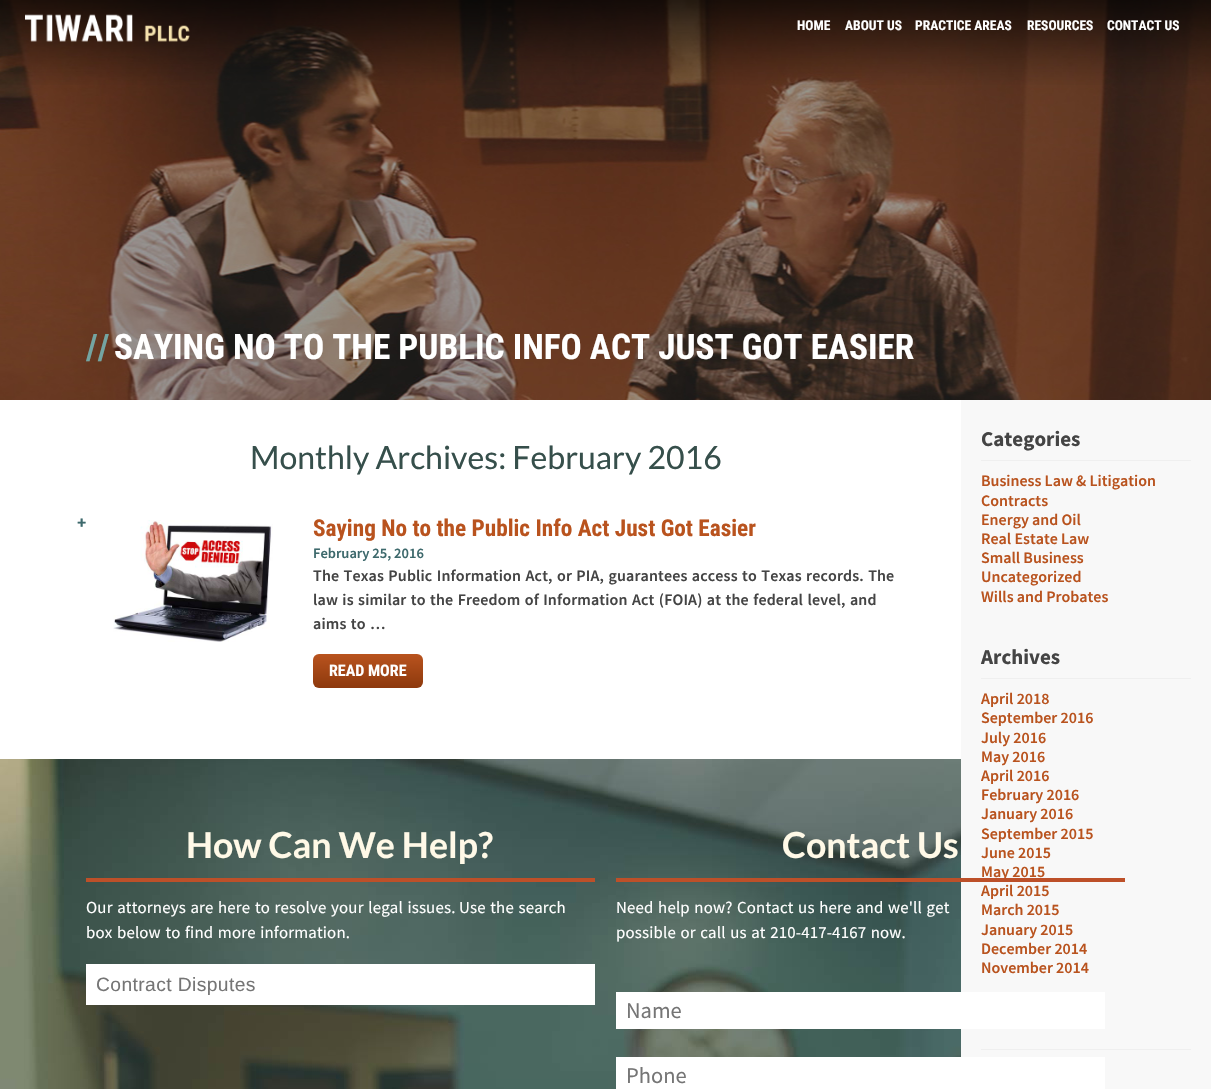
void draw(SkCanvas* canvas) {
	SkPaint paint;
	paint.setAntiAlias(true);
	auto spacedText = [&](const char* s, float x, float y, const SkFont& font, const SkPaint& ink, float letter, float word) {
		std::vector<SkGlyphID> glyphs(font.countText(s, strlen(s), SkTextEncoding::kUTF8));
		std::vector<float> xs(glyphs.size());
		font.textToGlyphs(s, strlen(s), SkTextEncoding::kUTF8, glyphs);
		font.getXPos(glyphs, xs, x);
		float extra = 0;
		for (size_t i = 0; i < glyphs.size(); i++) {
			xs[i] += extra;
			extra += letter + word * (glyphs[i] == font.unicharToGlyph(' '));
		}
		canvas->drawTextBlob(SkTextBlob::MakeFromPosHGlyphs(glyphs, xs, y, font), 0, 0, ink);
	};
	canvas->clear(0xffffffff);
	canvas->drawImageRect(SkImages::DeferredFromEncodedData(SkData::MakeFromFileName("img3.png")), SkRect::MakeXYWH(0, 0, 1211, 400), SkSamplingOptions());
	canvas->drawImageRect(SkImages::DeferredFromEncodedData(SkData::MakeFromFileName("img1.png")), SkRect::MakeXYWH(0, 0, 1211, 85), SkSamplingOptions());
	canvas->drawImageRect(SkImages::DeferredFromEncodedData(SkData::MakeFromFileName("img2.png")), SkRect::MakeXYWH(25, 14, 165, 28), SkSamplingOptions());
	SkFont f1(fontMgr->matchFamilyStyle("Roboto Condensed", SkFontStyle::Bold()), 13.5);
	f1.setSubpixel(true);
	paint.setColor(0xffffffff);
	canvas->drawString("HOME", 797, 30, f1, paint);
	canvas->drawString("ABOUT US", 845, 30, f1, paint);
	canvas->drawString("PRACTICE AREAS", 915, 30, f1, paint);
	canvas->drawString("RESOURCES", 1027, 30, f1, paint);
	canvas->drawString("CONTACT US", 1107, 30, f1, paint);
	SkFont f2(fontMgr->matchFamilyStyle("Roboto Condensed", SkFontStyle::Bold()), 35.2);
	f2.setSubpixel(true);
	paint.setColor(0xff74a5a2);
	canvas->drawString("//", 86, 359, f2, paint);
	paint.setColor(0xffffffff);
	canvas->drawString("SAYING NO TO THE PUBLIC INFO ACT JUST GOT EASIER", 114, 359, f2, paint);
	SkFont f3(fontMgr->matchFamilyStyle("Lato", SkFontStyle::Normal()), 32);
	f3.setSubpixel(true);
	paint.setColor(0xff364f4b);
	canvas->drawString("Monthly Archives: February 2016", 250, 469, f3, paint);
	SkFont f4(fontMgr->matchFamilyStyle("Lato", SkFontStyle(900, SkFontStyle::kNormal_Width, SkFontStyle::kUpright_Slant)), 16);
	f4.setSubpixel(true);
	paint.setColor(0xff3d696c);
	canvas->drawString("+", 77, 528, f4, paint);
	canvas->drawImageRect(SkImages::DeferredFromEncodedData(SkData::MakeFromFileName("img4.png")), SkRect::MakeXYWH(113, 520, 160, 122), SkSamplingOptions());
	SkFont f5(fontMgr->matchFamilyStyle("Roboto Condensed", SkFontStyle::Bold()), 23.25);
	f5.setSubpixel(true);
	paint.setColor(0xffb9531e);
	canvas->drawString("Saying No to the Public Info Act Just Got Easier", 313, 536, f5, paint);
	SkFont f6(fontMgr->matchFamilyStyle("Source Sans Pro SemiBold", SkFontStyle(600, SkFontStyle::kNormal_Width, SkFontStyle::kUpright_Slant)), 14.5);
	f6.setSubpixel(true);
	paint.setColor(0xff3d696c);
	canvas->drawString("February 25, 2016", 313, 558, f6, paint);
	SkFont f7(fontMgr->matchFamilyStyle("Source Sans Pro SemiBold", SkFontStyle(600, SkFontStyle::kNormal_Width, SkFontStyle::kUpright_Slant)), 16);
	f7.setSubpixel(true);
	paint.setColor(0xff444444);
	spacedText("The Texas Public Information Act, or PIA, guarantees access to Texas records. The", 313, 581, f7, paint, 0.15, 1);
	spacedText("law is similar to the Freedom of Information Act (FOIA) at the federal level, and", 313, 605, f7, paint, 0.15, 1);
	spacedText("aims to …", 313, 629, f7, paint, 0.15, 1);
	{
		const SkColor colors[] = {0xffb9531e, 0xff8d390d};
		const float stops[] = {0, 1};
		const SkPoint ends[] = {{368, 654}, {368, 688}};
		paint.setShader(SkGradientShader::MakeLinear(ends, colors, stops, 2, SkTileMode::kClamp));
		paint.setAlpha(255);
	}
	canvas->drawRoundRect(SkRect::MakeXYWH(313, 654, 110, 34), 6, 6, paint);
	SkFont f8(fontMgr->matchFamilyStyle("Roboto Condensed", SkFontStyle::Bold()), 16);
	f8.setSubpixel(true);
	paint.setShader(nullptr);
	paint.setColor(0xffffffff);
	canvas->drawString("READ MORE", 329, 676, f8, paint);
	paint.setColor(0xfff8f8f8);
	canvas->drawRect(SkRect::MakeXYWH(961, 400, 250, 689), paint);
	paint.setColor(0xffefefef);
	canvas->drawRect(SkRect::MakeXYWH(981, 460, 210, 1), paint);
	SkFont f9(fontMgr->matchFamilyStyle("Source Sans Pro", SkFontStyle::Bold()), 21);
	f9.setSubpixel(true);
	paint.setColor(0xff444444);
	canvas->drawString("Categories", 981, 446, f9, paint);
	paint.setColor(0xffb9531e);
	canvas->drawString("Business Law & Litigation", 981, 486, f7, paint);
	canvas->drawString("Contracts", 981, 506, f7, paint);
	canvas->drawString("Energy and Oil", 981, 525, f7, paint);
	canvas->drawString("Real Estate Law", 981, 544, f7, paint);
	canvas->drawString("Small Business", 981, 563, f7, paint);
	canvas->drawString("Uncategorized", 981, 582, f7, paint);
	canvas->drawString("Wills and Probates", 981, 602, f7, paint);
	paint.setColor(0xffefefef);
	canvas->drawRect(SkRect::MakeXYWH(981, 678, 210, 1), paint);
	paint.setColor(0xff444444);
	canvas->drawString("Archives", 981, 664, f9, paint);
	paint.setColor(0xffb9531e);
	canvas->drawString("April 2018", 981, 704, f7, paint);
	canvas->drawString("September 2016", 981, 723, f7, paint);
	canvas->drawString("July 2016", 981, 743, f7, paint);
	canvas->drawString("May 2016", 981, 762, f7, paint);
	canvas->drawString("April 2016", 981, 781, f7, paint);
	canvas->drawString("February 2016", 981, 800, f7, paint);
	canvas->drawString("January 2016", 981, 819, f7, paint);
	canvas->drawString("September 2015", 981, 839, f7, paint);
	canvas->drawString("June 2015", 981, 858, f7, paint);
	canvas->drawString("May 2015", 981, 877, f7, paint);
	canvas->drawString("April 2015", 981, 896, f7, paint);
	canvas->drawString("March 2015", 981, 915, f7, paint);
	canvas->drawString("January 2015", 981, 935, f7, paint);
	canvas->drawString("December 2014", 981, 954, f7, paint);
	canvas->drawString("November 2014", 981, 973, f7, paint);
	paint.setColor(0xffefefef);
	canvas->drawRect(SkRect::MakeXYWH(981, 1049, 210, 1), paint);
	canvas->drawImageRect(SkImages::DeferredFromEncodedData(SkData::MakeFromFileName("img5.png")), SkRect::MakeXYWH(0, 759, 961, 330), SkSamplingOptions());
	paint.setColor(0xffbd5029);
	canvas->drawRect(SkRect::MakeXYWH(86, 878, 509, 4), paint);
	SkFont f10(fontMgr->matchFamilyStyle("Lato", SkFontStyle::Bold()), 35.75);
	f10.setSubpixel(true);
	paint.setColor(0xfffff9e7);
	canvas->drawString("How Can We Help?", 186, 858, f10, paint);
	SkFont f11(fontMgr->matchFamilyStyle("Source Sans Pro", SkFontStyle::Normal()), 16.8);
	f11.setSubpixel(true);
	paint.setColor(0xffffffff);
	spacedText("Our attorneys are here to resolve your legal issues.", 86, 913, f11, paint, 0.17, 1);
	spacedText("Use the search", 459, 913, f11, paint, 0.17, 1);
	spacedText("box below to find more information.", 86, 938, f11, paint, 0.17, 1);
	canvas->drawRect(SkRect::MakeXYWH(86, 964, 509, 41), paint);
	SkFont f12(fontMgr->matchFamilyStyle("Liberation Sans", SkFontStyle::Normal()), 19.25);
	f12.setSubpixel(true);
	paint.setColor(0xff757575);
	spacedText("Contract Disputes", 96, 991, f12, paint, 0.4, 0);
	paint.setColor(0xffbd5029);
	canvas->drawRect(SkRect::MakeXYWH(616, 878, 509, 4), paint);
	paint.setColor(0xfffff9e7);
	canvas->drawString("Contact Us", 782, 858, f10, paint);
	paint.setColor(0xffffffff);
	spacedText("Need help now?", 616, 913, f11, paint, 0.17, 1);
	spacedText("Contact us here and we'll get", 737, 913, f11, paint, 0.17, 1);
	spacedText("possible or call us at 210-417-4167 now.", 616, 938, f11, paint, 0.17, 1);
	canvas->drawRect(SkRect::MakeXYWH(616, 992, 489, 37), paint);
	SkFont f13(fontMgr->matchFamilyStyle("Source Sans Pro", SkFontStyle::Normal()), 22.5);
	f13.setSubpixel(true);
	paint.setColor(0xff757575);
	canvas->drawString("Name", 626, 1018, f13, paint);
	paint.setColor(0xffffffff);
	canvas->drawRect(SkRect::MakeXYWH(616, 1057, 489, 32), paint);
	paint.setColor(0xff757575);
	canvas->drawString("Phone", 626, 1083, f13, paint);
}
